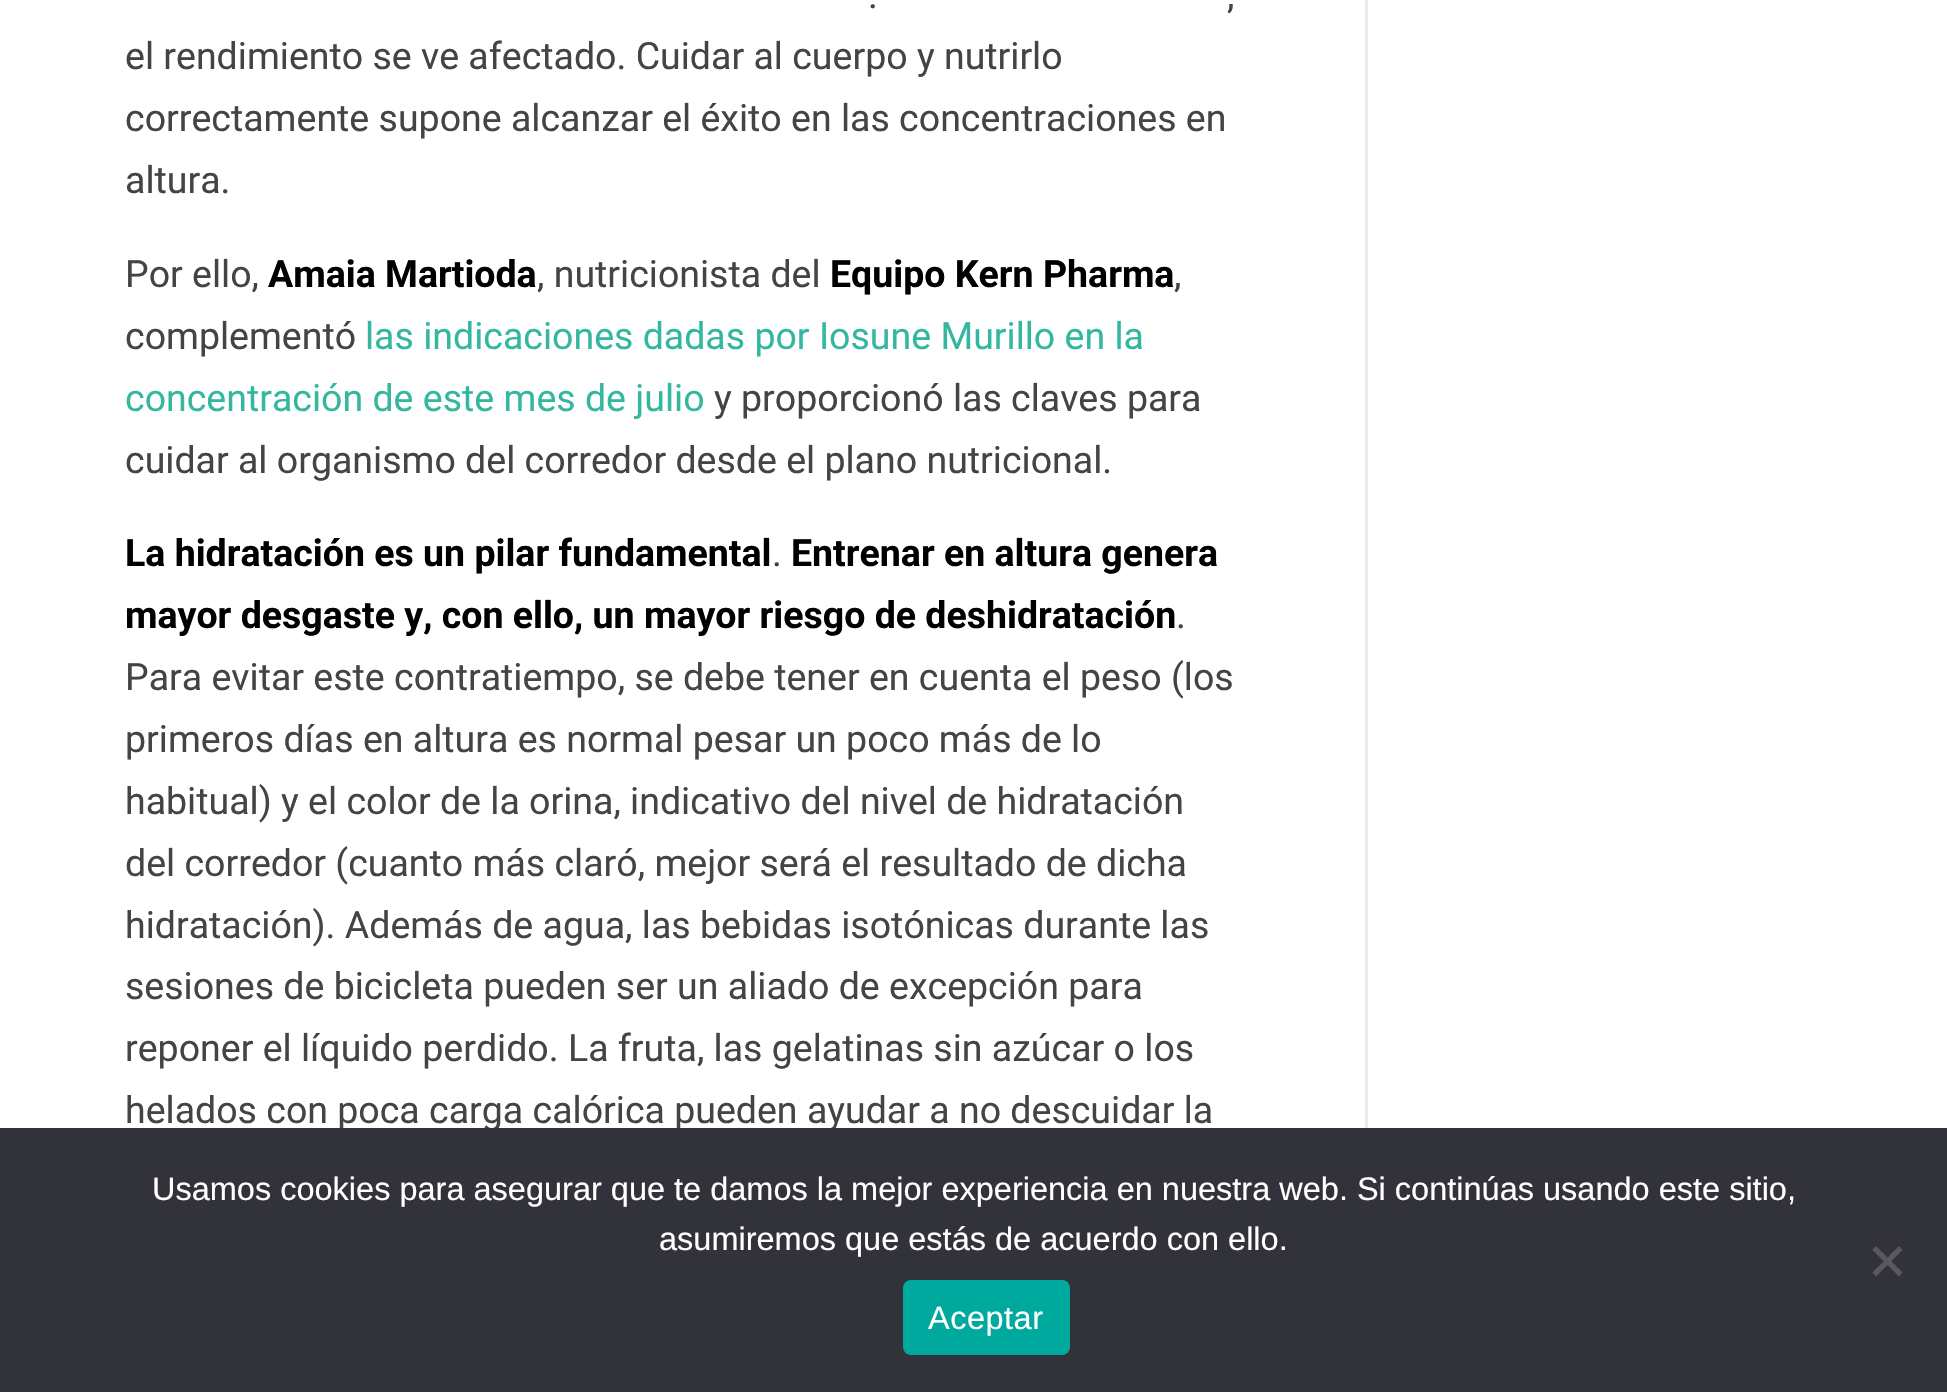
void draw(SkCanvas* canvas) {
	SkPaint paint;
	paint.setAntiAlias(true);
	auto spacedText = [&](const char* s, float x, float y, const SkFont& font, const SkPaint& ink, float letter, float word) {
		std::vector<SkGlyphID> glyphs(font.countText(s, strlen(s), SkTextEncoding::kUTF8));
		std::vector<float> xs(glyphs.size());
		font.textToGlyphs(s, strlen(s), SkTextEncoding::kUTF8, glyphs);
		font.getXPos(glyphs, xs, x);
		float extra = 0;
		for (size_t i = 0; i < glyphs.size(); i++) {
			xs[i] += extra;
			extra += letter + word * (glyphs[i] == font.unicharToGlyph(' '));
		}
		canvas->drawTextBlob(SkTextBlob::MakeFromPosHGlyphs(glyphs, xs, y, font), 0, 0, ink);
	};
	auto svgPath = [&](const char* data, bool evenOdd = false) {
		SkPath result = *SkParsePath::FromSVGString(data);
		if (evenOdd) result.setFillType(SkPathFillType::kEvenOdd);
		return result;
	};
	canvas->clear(0xffffffff);
	paint.setColor(0xffebebeb);
	canvas->drawRect(SkRect::MakeXYWH(1365, 0, 3, 1128), paint);
	SkFont f1(fontMgr->matchFamilyStyle("Roboto", SkFontStyle::Normal()), 37.5);
	f1.setSubpixel(true);
	paint.setColor(0xff444444);
	canvas->drawString(".", 868, 8, f1, paint);
	canvas->drawString(",", 1227, 8, f1, paint);
	canvas->drawString("el rendimiento se ve afectado. Cuidar al cuerpo y nutrirlo", 125, 69, f1, paint);
	canvas->drawString("correctamente supone alcanzar el éxito en las concentraciones en", 125, 131, f1, paint);
	canvas->drawString("altura.", 125, 193, f1, paint);
	canvas->drawString("Por ello,", 125, 287, f1, paint);
	SkFont f2(fontMgr->matchFamilyStyle("Roboto", SkFontStyle::Bold()), 37.5);
	f2.setSubpixel(true);
	paint.setColor(0xff000000);
	canvas->drawString("Amaia Martioda", 268, 287, f2, paint);
	paint.setColor(0xff444444);
	canvas->drawString(", nutricionista del", 537, 287, f1, paint);
	paint.setColor(0xff000000);
	canvas->drawString("Equipo Kern Pharma", 830, 287, f2, paint);
	paint.setColor(0xff444444);
	canvas->drawString(",", 1174, 287, f1, paint);
	canvas->drawString("complementó", 125, 349, f1, paint);
	paint.setColor(0xff34b79f);
	canvas->drawString("las indicaciones dadas por Iosune Murillo en la", 365, 349, f1, paint);
	canvas->drawString("concentración de este mes de julio", 125, 411, f1, paint);
	paint.setColor(0xff444444);
	canvas->drawString("y proporcionó las claves para", 714, 411, f1, paint);
	canvas->drawString("cuidar al organismo del corredor desde el plano nutricional.", 125, 473, f1, paint);
	paint.setColor(0xff000000);
	canvas->drawString("La hidratación es un pilar fundamental", 125, 566, f2, paint);
	paint.setColor(0xff444444);
	canvas->drawString(".", 772, 566, f1, paint);
	paint.setColor(0xff000000);
	canvas->drawString("Entrenar en altura genera", 791, 566, f2, paint);
	canvas->drawString("mayor desgaste y, con ello, un mayor riesgo de deshidratación", 125, 628, f2, paint);
	paint.setColor(0xff444444);
	canvas->drawString(".", 1176, 628, f1, paint);
	canvas->drawString("Para evitar este contratiempo, se debe tener en cuenta el peso (los", 125, 690, f1, paint);
	canvas->drawString("primeros días en altura es normal pesar un poco más de lo", 125, 752, f1, paint);
	canvas->drawString("habitual) y el color de la orina, indicativo del nivel de hidratación", 125, 814, f1, paint);
	canvas->drawString("del corredor (cuanto más claró, mejor será el resultado de dicha", 125, 876, f1, paint);
	canvas->drawString("hidratación). Además de agua, las bebidas isotónicas durante las", 125, 938, f1, paint);
	canvas->drawString("sesiones de bicicleta pueden ser un aliado de excepción para", 125, 999, f1, paint);
	canvas->drawString("reponer el líquido perdido. La fruta, las gelatinas sin azúcar o los", 125, 1061, f1, paint);
	canvas->drawString("helados con poca carga calórica pueden ayudar a no descuidar la", 125, 1123, f1, paint);
	paint.setColor(0xff32323a);
	canvas->drawRect(SkRect::MakeXYWH(0, 1128, 1947, 264), paint);
	SkFont f3(fontMgr->matchFamilyStyle("Liberation Sans", SkFontStyle::Normal()), 32.5);
	f3.setSubpixel(true);
	paint.setColor(0xffffffff);
	canvas->drawString("Usamos cookies para asegurar que te damos la mejor experiencia en nuestra web. Si continúas usando este sitio,", 152, 1200, f3, paint);
	canvas->drawString("asumiremos que estás de acuerdo con ello.", 659, 1250, f3, paint);
	paint.setColor(0xff59595d);
	canvas->drawPath(svgPath("M1899 1246L1902.5 1250L1876 1276.5L1872.5 1272.5Z"), paint);
	canvas->drawPath(svgPath("M1872.5 1250L1876 1246L1902.5 1272.5L1899 1276.5Z"), paint);
	paint.setColor(0xff00a99d);
	canvas->drawRoundRect(SkRect::MakeXYWH(903, 1280, 167, 75), 8, 8, paint);
	paint.setColor(0xffffffff);
	spacedText("Aceptar", 928, 1329, f3, paint, 0.5, 0);
}
